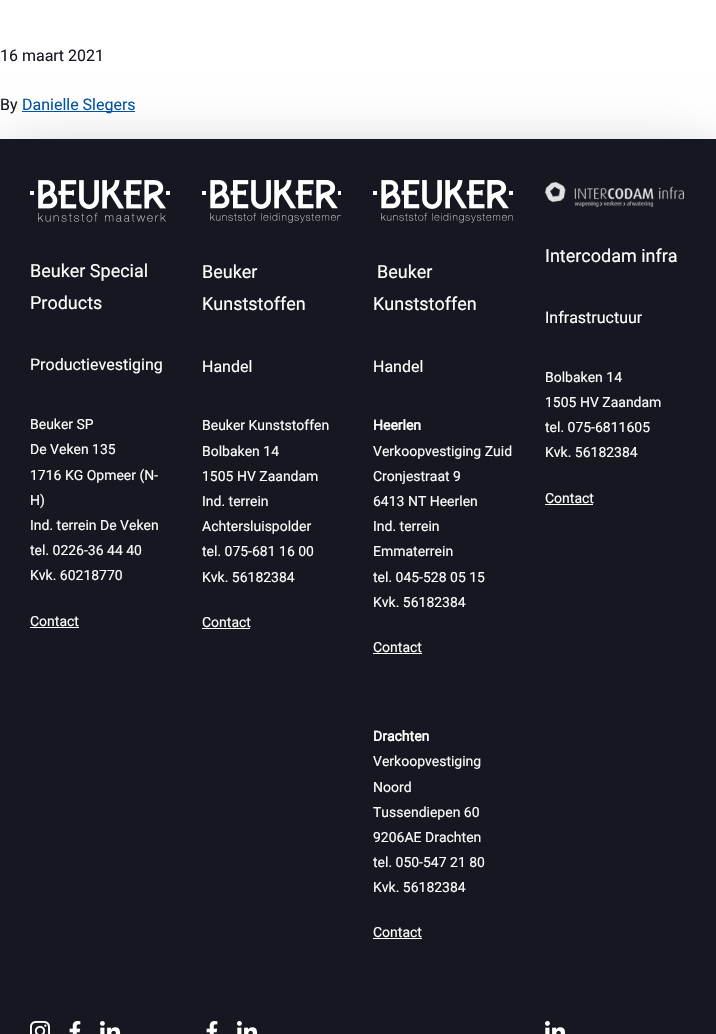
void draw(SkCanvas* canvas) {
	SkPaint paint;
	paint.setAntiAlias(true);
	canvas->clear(0xffffffff);
	SkFont f1(fontMgr->matchFamilyStyle("Roboto", SkFontStyle::Normal()), 16);
	f1.setSubpixel(true);
	paint.setColor(0xff171a23);
	canvas->drawString("16 maart 2021", 0, 61, f1, paint);
	paint.setColor(0x80000000);
	paint.setMaskFilter(SkMaskFilter::MakeBlur(kNormal_SkBlurStyle, 35));
	canvas->drawRect(SkRect::MakeXYWH(0, 177, 716, 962), paint);
	paint.setMaskFilter(nullptr);
	paint.setColor(0xff171a23);
	canvas->drawString("By", 0, 110, f1, paint);
	paint.setColor(0xff0054a4);
	canvas->drawRect(SkRect::MakeXYWH(22, 111, 113, 1), paint);
	canvas->drawString("Danielle Slegers", 22, 110, f1, paint);
	paint.setColor(0xff151820);
	canvas->drawRect(SkRect::MakeXYWH(0, 139, 716, 895), paint);
	canvas->drawImageRect(SkImages::DeferredFromEncodedData(SkData::MakeFromFileName("img1.png")), SkRect::MakeXYWH(30, 180, 140, 42), SkSamplingOptions());
	SkFont f2(fontMgr->matchFamilyStyle("Roboto", SkFontStyle::Normal()), 18);
	f2.setSubpixel(true);
	paint.setColor(0xffffffff);
	canvas->drawString("Beuker Special", 30, 277, f2, paint);
	canvas->drawString("Products", 30, 309, f2, paint);
	canvas->drawString("Productievestiging", 30, 370, f1, paint);
	SkFont f3(fontMgr->matchFamilyStyle("Roboto", SkFontStyle::Normal()), 14);
	f3.setSubpixel(true);
	canvas->drawString("Beuker SP", 30, 429, f3, paint);
	canvas->drawString("De Veken 135", 30, 454, f3, paint);
	canvas->drawString("1716 KG Opmeer (N-", 30, 480, f3, paint);
	canvas->drawString("H)", 30, 505, f3, paint);
	canvas->drawString("Ind. terrein De Veken", 30, 530, f3, paint);
	canvas->drawString("tel. 0226-36 44 40", 30, 555, f3, paint);
	canvas->drawString("Kvk. 60218770", 30, 580, f3, paint);
	canvas->drawString("Contact", 30, 626, f3, paint);
	canvas->drawRect(SkRect::MakeXYWH(30, 627, 49, 1), paint);
	canvas->drawImageRect(SkImages::DeferredFromEncodedData(SkData::MakeFromFileName("img2.png")), SkRect::MakeXYWH(30, 1021, 20, 13), SkSamplingOptions());
	canvas->drawImageRect(SkImages::DeferredFromEncodedData(SkData::MakeFromFileName("img3.png")), SkRect::MakeXYWH(69, 1021, 12, 13), SkSamplingOptions());
	canvas->drawImageRect(SkImages::DeferredFromEncodedData(SkData::MakeFromFileName("img4.png")), SkRect::MakeXYWH(100, 1021, 21, 13), SkSamplingOptions());
	canvas->drawImageRect(SkImages::DeferredFromEncodedData(SkData::MakeFromFileName("img5.png")), SkRect::MakeXYWH(202, 180, 139, 43), SkSamplingOptions());
	canvas->drawString("Beuker", 202, 278, f2, paint);
	canvas->drawString("Kunststoffen", 202, 310, f2, paint);
	canvas->drawString("Handel", 202, 372, f1, paint);
	canvas->drawString("Beuker Kunststoffen", 202, 430, f3, paint);
	canvas->drawString("Bolbaken 14", 202, 456, f3, paint);
	canvas->drawString("1505 HV Zaandam", 202, 481, f3, paint);
	canvas->drawString("Ind. terrein", 202, 506, f3, paint);
	canvas->drawString("Achtersluispolder", 202, 531, f3, paint);
	canvas->drawString("tel. 075-681 16 00", 202, 556, f3, paint);
	canvas->drawString("Kvk. 56182384", 202, 582, f3, paint);
	canvas->drawString("Contact", 202, 627, f3, paint);
	canvas->drawRect(SkRect::MakeXYWH(202, 628, 48, 1), paint);
	canvas->drawImageRect(SkImages::DeferredFromEncodedData(SkData::MakeFromFileName("img3.png")), SkRect::MakeXYWH(206, 1021, 12, 13), SkSamplingOptions());
	canvas->drawImageRect(SkImages::DeferredFromEncodedData(SkData::MakeFromFileName("img4.png")), SkRect::MakeXYWH(237, 1021, 21, 13), SkSamplingOptions());
	canvas->drawImageRect(SkImages::DeferredFromEncodedData(SkData::MakeFromFileName("img6.png")), SkRect::MakeXYWH(373, 180, 140, 43), SkSamplingOptions());
	canvas->drawString("Beuker", 377, 278, f2, paint);
	canvas->drawString("Kunststoffen", 373, 310, f2, paint);
	canvas->drawString("Handel", 373, 372, f1, paint);
	SkFont f4(fontMgr->matchFamilyStyle("Roboto", SkFontStyle::Bold()), 14);
	f4.setSubpixel(true);
	canvas->drawString("Heerlen", 373, 430, f4, paint);
	canvas->drawString("Verkoopvestiging Zuid", 373, 456, f3, paint);
	canvas->drawString("Cronjestraat 9", 373, 481, f3, paint);
	canvas->drawString("6413 NT Heerlen", 373, 506, f3, paint);
	canvas->drawString("Ind. terrein", 373, 531, f3, paint);
	canvas->drawString("Emmaterrein", 373, 556, f3, paint);
	canvas->drawString("tel. 045-528 05 15", 373, 582, f3, paint);
	canvas->drawString("Kvk. 56182384", 373, 607, f3, paint);
	canvas->drawString("Contact", 373, 652, f3, paint);
	canvas->drawRect(SkRect::MakeXYWH(373, 653, 49, 1), paint);
	canvas->drawString("Drachten", 373, 741, f4, paint);
	canvas->drawString("Verkoopvestiging", 373, 766, f3, paint);
	canvas->drawString("Noord", 373, 792, f3, paint);
	canvas->drawString("Tussendiepen 60", 373, 817, f3, paint);
	canvas->drawString("9206AE Drachten", 373, 842, f3, paint);
	canvas->drawString("tel. 050-547 21 80", 373, 867, f3, paint);
	canvas->drawString("Kvk. 56182384", 373, 892, f3, paint);
	canvas->drawString("Contact", 373, 937, f3, paint);
	canvas->drawRect(SkRect::MakeXYWH(373, 938, 49, 1), paint);
	canvas->drawImageRect(SkImages::DeferredFromEncodedData(SkData::MakeFromFileName("img7.png")), SkRect::MakeXYWH(545, 182, 139, 25), SkSamplingOptions());
	canvas->drawString("Intercodam infra", 545, 262, f2, paint);
	canvas->drawString("Infrastructuur", 545, 323, f1, paint);
	canvas->drawString("Bolbaken 14", 545, 382, f3, paint);
	canvas->drawString("1505 HV Zaandam", 545, 407, f3, paint);
	canvas->drawString("tel. 075-6811605", 545, 432, f3, paint);
	canvas->drawString("Kvk. 56182384", 545, 457, f3, paint);
	canvas->drawString("Contact", 545, 503, f3, paint);
	canvas->drawRect(SkRect::MakeXYWH(545, 504, 48, 1), paint);
	canvas->drawImageRect(SkImages::DeferredFromEncodedData(SkData::MakeFromFileName("img4.png")), SkRect::MakeXYWH(545, 1021, 21, 13), SkSamplingOptions());
}
